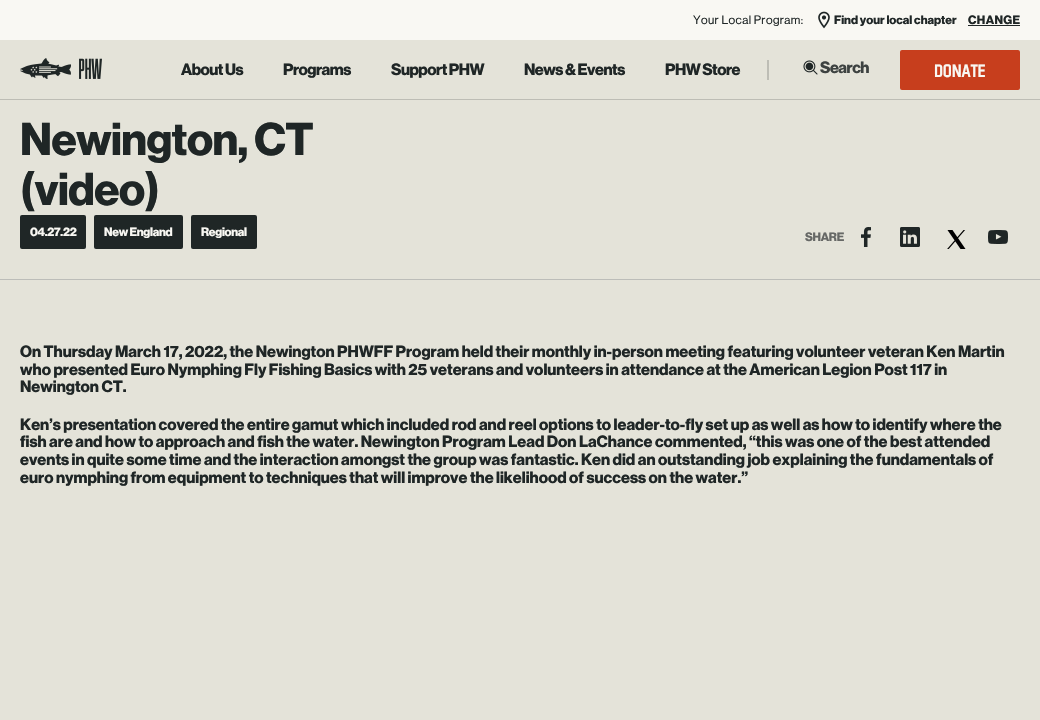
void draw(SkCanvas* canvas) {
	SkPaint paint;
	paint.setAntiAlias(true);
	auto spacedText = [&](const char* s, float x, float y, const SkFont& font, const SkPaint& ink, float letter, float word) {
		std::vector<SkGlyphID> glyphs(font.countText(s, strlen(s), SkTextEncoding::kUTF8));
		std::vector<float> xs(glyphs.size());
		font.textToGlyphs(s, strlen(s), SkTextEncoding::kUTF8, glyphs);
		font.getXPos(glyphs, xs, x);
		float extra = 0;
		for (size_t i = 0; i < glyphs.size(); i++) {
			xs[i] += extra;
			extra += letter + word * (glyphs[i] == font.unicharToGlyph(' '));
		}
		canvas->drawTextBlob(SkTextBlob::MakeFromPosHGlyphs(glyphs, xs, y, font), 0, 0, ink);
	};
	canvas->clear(0xffe4e3d9);
	paint.setColor(0xffbdbdb5);
	canvas->drawRect(SkRect::MakeXYWH(0, 99, 1040, 1), paint);
	paint.setColor(0xfff9f8f3);
	canvas->drawRect(SkRect::MakeXYWH(0, 0, 1040, 40), paint);
	SkFont f1(fontMgr->matchFamilyStyle("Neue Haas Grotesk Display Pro", SkFontStyle::Normal()), 12);
	f1.setSubpixel(true);
	paint.setColor(0xff1f2626);
	spacedText("Your Local Program:", 693, 24, f1, paint, 0.4, 0);
	canvas->drawImageRect(SkImages::DeferredFromEncodedData(SkData::MakeFromFileName("img1.png")), SkRect::MakeXYWH(818, 11, 12, 18), SkSamplingOptions());
	SkFont f2(fontMgr->matchFamilyStyle("Neue Haas Grotesk Display Pro", SkFontStyle::Bold()), 12);
	f2.setSubpixel(true);
	canvas->drawString("Find your local chapter", 834, 24, f2, paint);
	canvas->drawRect(SkRect::MakeXYWH(968, 25, 52, 1), paint);
	spacedText("CHANGE", 968, 24, f2, paint, 0.4, 0);
	canvas->drawImageRect(SkImages::DeferredFromEncodedData(SkData::MakeFromFileName("img2.png")), SkRect::MakeXYWH(20, 58, 82, 21), SkSamplingOptions());
	SkFont f3(fontMgr->matchFamilyStyle("Neue Haas Grotesk Display Pro", SkFontStyle::Bold()), 16);
	f3.setSubpixel(true);
	spacedText("About Us", 181, 75, f3, paint, -0.5, 0);
	spacedText("Programs", 283, 75, f3, paint, -0.5, 0);
	spacedText("Support PHW", 391, 75, f3, paint, -0.5, 0);
	spacedText("News & Events", 524, 75, f3, paint, -0.5, 0);
	spacedText("PHW Store", 665, 75, f3, paint, -0.5, 0);
	paint.setColor(0xffbdbdb5);
	canvas->drawRect(SkRect::MakeXYWH(767, 60, 2, 20), paint);
	canvas->drawImageRect(SkImages::DeferredFromEncodedData(SkData::MakeFromFileName("img3.png")), SkRect::MakeXYWH(803, 60, 15, 15), SkSamplingOptions());
	paint.setColor(0xff3d4241);
	spacedText("Search", 820, 73, f3, paint, -0.5, 0);
	paint.setColor(0xffc73e1d);
	canvas->drawRoundRect(SkRect::MakeXYWH(900, 50, 120, 40), 2, 2, paint);
	SkFont f4(fontMgr->matchFamilyStyle("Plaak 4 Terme", SkFontStyle::Bold()), 18);
	f4.setSubpixel(true);
	paint.setColor(0xfff9f8f3);
	spacedText("DONATE", 934, 77, f4, paint, -0.25, 0);
	paint.setColor(0xffbcbdb9);
	canvas->drawRect(SkRect::MakeXYWH(0, 279, 1040, 1), paint);
	SkFont f5(fontMgr->matchFamilyStyle("Neue Haas Grotesk Display Pro", SkFontStyle::Bold()), 45);
	f5.setSubpixel(true);
	paint.setColor(0xff1f2626);
	spacedText("Newington, CT", 20, 155, f5, paint, -0.5, 0);
	spacedText("(video)", 20, 205, f5, paint, -0.5, 0);
	canvas->drawRoundRect(SkRect::MakeXYWH(20, 215, 66, 34), 2, 2, paint);
	paint.setColor(0xfff9f8f3);
	spacedText("04.27.22", 30, 236, f2, paint, -0.25, 0);
	paint.setColor(0xff1f2626);
	canvas->drawRoundRect(SkRect::MakeXYWH(94, 215, 89, 34), 2, 2, paint);
	paint.setColor(0xfff9f8f3);
	spacedText("New England", 104, 236, f2, paint, -0.25, 0);
	paint.setColor(0xff1f2626);
	canvas->drawRoundRect(SkRect::MakeXYWH(191, 215, 66, 34), 2, 2, paint);
	paint.setColor(0xfff9f8f3);
	spacedText("Regional", 201, 236, f2, paint, -0.25, 0);
	paint.setColor(0xff666866);
	spacedText("SHARE", 805, 241, f2, paint, -0.25, 0);
	canvas->drawImageRect(SkImages::DeferredFromEncodedData(SkData::MakeFromFileName("img4.png")), SkRect::MakeXYWH(861, 227, 10, 20), SkSamplingOptions());
	canvas->drawImageRect(SkImages::DeferredFromEncodedData(SkData::MakeFromFileName("img5.png")), SkRect::MakeXYWH(900, 227, 20, 20), SkSamplingOptions());
	canvas->drawImageRect(SkImages::DeferredFromEncodedData(SkData::MakeFromFileName("img6.png")), SkRect::MakeXYWH(947, 230, 19, 19), SkSamplingOptions());
	canvas->drawImageRect(SkImages::DeferredFromEncodedData(SkData::MakeFromFileName("img7.png")), SkRect::MakeXYWH(988, 230, 20, 14), SkSamplingOptions());
	paint.setColor(0xff1f2626);
	canvas->drawString("On Thursday March 17, 2022, the Newington PHWFF Program held their monthly in-person meeting featuring volunteer veteran Ken Martin", 20, 357, f3, paint);
	canvas->drawString("who presented Euro Nymphing Fly Fishing Basics with 25 veterans and volunteers in attendance at the American Legion Post 117 in", 20, 375, f3, paint);
	canvas->drawString("Newington CT.", 20, 392, f3, paint);
	canvas->drawString("Ken’s presentation covered the entire gamut which included rod and reel options to leader-to-fly set up as well as how to identify where the", 20, 430, f3, paint);
	canvas->drawString("fish are and how to approach and fish the water. Newington Program Lead Don LaChance commented, “this was one of the best attended", 20, 447, f3, paint);
	canvas->drawString("events in quite some time and the interaction amongst the group was fantastic. Ken did an outstanding job explaining the fundamentals of", 20, 465, f3, paint);
	canvas->drawString("euro nymphing from equipment to techniques that will improve the likelihood of success on the water.”", 20, 483, f3, paint);
}
